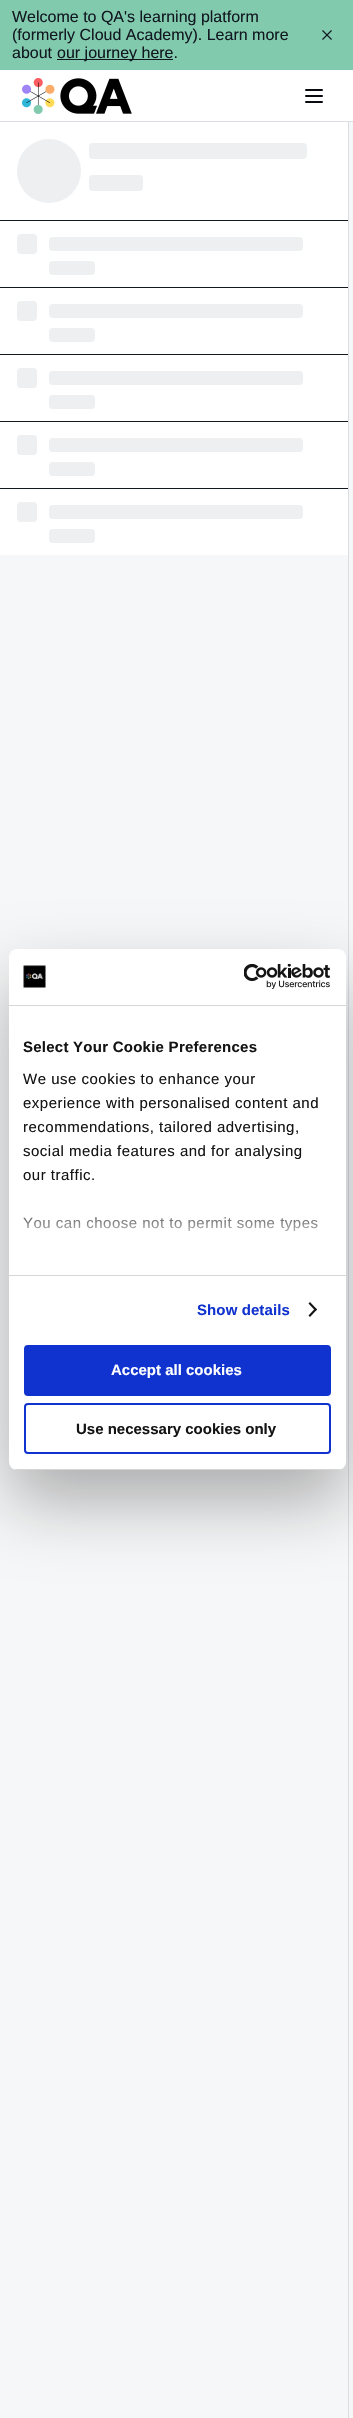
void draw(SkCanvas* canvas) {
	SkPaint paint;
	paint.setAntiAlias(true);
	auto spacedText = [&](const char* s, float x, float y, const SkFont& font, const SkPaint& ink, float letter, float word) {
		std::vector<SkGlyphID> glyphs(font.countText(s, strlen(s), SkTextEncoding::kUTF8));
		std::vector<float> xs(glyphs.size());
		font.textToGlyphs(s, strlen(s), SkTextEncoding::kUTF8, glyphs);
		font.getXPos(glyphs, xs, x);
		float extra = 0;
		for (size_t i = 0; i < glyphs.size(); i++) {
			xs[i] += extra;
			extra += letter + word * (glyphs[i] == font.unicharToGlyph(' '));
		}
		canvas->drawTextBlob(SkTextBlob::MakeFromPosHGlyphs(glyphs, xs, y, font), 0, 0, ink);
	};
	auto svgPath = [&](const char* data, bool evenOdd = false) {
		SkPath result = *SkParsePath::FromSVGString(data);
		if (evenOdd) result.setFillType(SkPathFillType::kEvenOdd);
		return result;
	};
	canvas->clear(0xffffffff);
	paint.setColor(0xff82caae);
	canvas->drawRect(SkRect::MakeXYWH(0, 0, 353, 70), paint);
	SkFont f1(fontMgr->matchFamilyStyle("Liberation Sans", SkFontStyle::Normal()), 16);
	f1.setSubpixel(true);
	paint.setColor(0xff111820);
	canvas->drawString("Welcome to QA's learning platform", 12, 22, f1, paint);
	canvas->drawString("(formerly Cloud Academy). Learn more", 12, 40, f1, paint);
	canvas->drawString("about", 12, 58, f1, paint);
	canvas->drawRect(SkRect::MakeXYWH(57, 59, 116, 1), paint);
	canvas->drawString("our journey here.", 57, 58, f1, paint);
	canvas->drawImageRect(SkImages::DeferredFromEncodedData(SkData::MakeFromFileName("img1.png")), SkRect::MakeXYWH(322, 30, 10, 10), SkSamplingOptions());
	paint.setColor(0xffdadee3);
	canvas->drawRect(SkRect::MakeXYWH(0, 121, 353, 1), paint);
	canvas->drawImageRect(SkImages::DeferredFromEncodedData(SkData::MakeFromFileName("img2.png")), SkRect::MakeXYWH(22, 78, 110, 36), SkSamplingOptions());
	paint.setColor(0xff080c10);
	canvas->drawRoundRect(SkRect::MakeXYWH(305, 89, 18, 2), 1, 1, paint);
	canvas->drawRoundRect(SkRect::MakeXYWH(305, 95, 18, 2), 1, 1, paint);
	canvas->drawRoundRect(SkRect::MakeXYWH(305, 101, 18, 2), 1, 1, paint);
	paint.setColor(0xfff6f7f8);
	canvas->drawRect(SkRect::MakeXYWH(0, 122, 353, 2296), paint);
	paint.setColor(0xffdadee3);
	canvas->drawRect(SkRect::MakeXYWH(348, 122, 1, 2296), paint);
	paint.setColor(0xffffffff);
	canvas->drawRect(SkRect::MakeXYWH(0, 122, 348, 98), paint);
	paint.setColor(0xffedeff1);
	canvas->drawCircle(49, 171, 32, paint);
	canvas->drawRoundRect(SkRect::MakeXYWH(89, 143, 218, 16), 4, 4, paint);
	canvas->drawRoundRect(SkRect::MakeXYWH(89, 175, 54, 16), 4, 4, paint);
	paint.setColor(0xff111820);
	canvas->drawRect(SkRect::MakeXYWH(0, 220, 348, 1), paint);
	paint.setColor(0xffffffff);
	canvas->drawRect(SkRect::MakeXYWH(0, 221, 348, 66), paint);
	paint.setColor(0xffedeff1);
	canvas->drawRoundRect(SkRect::MakeXYWH(17, 234, 20, 20), 4, 4, paint);
	canvas->drawRoundRect(SkRect::MakeXYWH(49, 237, 254, 14), 4, 4, paint);
	canvas->drawRoundRect(SkRect::MakeXYWH(49, 261, 46, 14), 4, 4, paint);
	paint.setColor(0xff111820);
	canvas->drawRect(SkRect::MakeXYWH(0, 287, 348, 1), paint);
	paint.setColor(0xffffffff);
	canvas->drawRect(SkRect::MakeXYWH(0, 288, 348, 66), paint);
	paint.setColor(0xffedeff1);
	canvas->drawRoundRect(SkRect::MakeXYWH(17, 301, 20, 20), 4, 4, paint);
	canvas->drawRoundRect(SkRect::MakeXYWH(49, 304, 254, 14), 4, 4, paint);
	canvas->drawRoundRect(SkRect::MakeXYWH(49, 328, 46, 14), 4, 4, paint);
	paint.setColor(0xff111820);
	canvas->drawRect(SkRect::MakeXYWH(0, 354, 348, 1), paint);
	paint.setColor(0xffffffff);
	canvas->drawRect(SkRect::MakeXYWH(0, 355, 348, 66), paint);
	paint.setColor(0xffedeff1);
	canvas->drawRoundRect(SkRect::MakeXYWH(17, 368, 20, 20), 4, 4, paint);
	canvas->drawRoundRect(SkRect::MakeXYWH(49, 371, 254, 14), 4, 4, paint);
	canvas->drawRoundRect(SkRect::MakeXYWH(49, 395, 46, 14), 4, 4, paint);
	paint.setColor(0xff111820);
	canvas->drawRect(SkRect::MakeXYWH(0, 421, 348, 1), paint);
	paint.setColor(0xffffffff);
	canvas->drawRect(SkRect::MakeXYWH(0, 422, 348, 66), paint);
	paint.setColor(0xffedeff1);
	canvas->drawRoundRect(SkRect::MakeXYWH(17, 435, 20, 20), 4, 4, paint);
	canvas->drawRoundRect(SkRect::MakeXYWH(49, 438, 254, 14), 4, 4, paint);
	canvas->drawRoundRect(SkRect::MakeXYWH(49, 462, 46, 14), 4, 4, paint);
	paint.setColor(0xff111820);
	canvas->drawRect(SkRect::MakeXYWH(0, 488, 348, 1), paint);
	paint.setColor(0xffffffff);
	canvas->drawRect(SkRect::MakeXYWH(0, 489, 348, 66), paint);
	paint.setColor(0xffedeff1);
	canvas->drawRoundRect(SkRect::MakeXYWH(17, 502, 20, 20), 4, 4, paint);
	canvas->drawRoundRect(SkRect::MakeXYWH(49, 505, 254, 14), 4, 4, paint);
	canvas->drawRoundRect(SkRect::MakeXYWH(49, 529, 46, 14), 4, 4, paint);
	paint.setColor(0x4d000000);
	paint.setMaskFilter(SkMaskFilter::MakeBlur(kNormal_SkBlurStyle, 34));
	canvas->drawRoundRect(SkRect::MakeXYWH(9, 981, 337, 521), 8, 8, paint);
	paint.setMaskFilter(nullptr);
	paint.setColor(0xffffffff);
	canvas->drawRoundRect(SkRect::MakeXYWH(9, 949, 337, 521), 8, 8, paint);
	paint.setColor(0xffd6d6d6);
	canvas->drawRect(SkRect::MakeXYWH(9, 1005, 337, 1), paint);
	canvas->drawImageRect(SkImages::DeferredFromEncodedData(SkData::MakeFromFileName("img3.png")), SkRect::MakeXYWH(23, 965, 23, 23), SkSamplingOptions());
	canvas->drawImageRect(SkImages::DeferredFromEncodedData(SkData::MakeFromFileName("img4.png")), SkRect::MakeXYWH(244, 964, 87, 25), SkSamplingOptions());
	canvas->drawRect(SkRect::MakeXYWH(9, 1275, 337, 1), paint);
	SkFont f2(fontMgr->matchFamilyStyle("Liberation Sans", SkFontStyle::Bold()), 15);
	f2.setSubpixel(true);
	paint.setColor(0xff141414);
	spacedText("Select Your Cookie Preferences", 23, 1052, f2, paint, 0.25, 0);
	SkFont f3(fontMgr->matchFamilyStyle("Liberation Sans", SkFontStyle::Normal()), 15);
	f3.setSubpixel(true);
	spacedText("We use cookies to enhance your", 23, 1084, f3, paint, 0.5, 0);
	spacedText("experience with personalised content and", 23, 1108, f3, paint, 0.5, 0);
	spacedText("recommendations, tailored advertising,", 23, 1132, f3, paint, 0.5, 0);
	spacedText("social media features and for analysing", 23, 1156, f3, paint, 0.5, 0);
	spacedText("our traffic.", 23, 1180, f3, paint, 0.5, 0);
	spacedText("You can choose not to permit some types", 23, 1228, f3, paint, 0.5, 0);
	{
		const SkColor colors[] = {0xffffffff, 0xccffffff, 0x00ffffff};
		const float stops[] = {0, 0.5, 1};
		const SkPoint ends[] = {{171, 1275}, {171, 1200}};
		paint.setShader(SkGradientShader::MakeLinear(ends, colors, stops, 3, SkTileMode::kClamp));
		paint.setAlpha(255);
	}
	canvas->drawRect(SkRect::MakeXYWH(23, 1217, 295, 15), paint);
	paint.setShader(nullptr);
	paint.setColor(0xff1032cf);
	spacedText("Show details", 197, 1315, f2, paint, 0.1, 0);
	paint.setColor(0xff141414);
	canvas->drawPath(svgPath("M310 1302L317 1309.5L315.5 1311L308.5 1303.5Z"), paint);
	canvas->drawPath(svgPath("M315.5 1308L317 1309.5L310 1317L308.5 1315.5Z"), paint);
	canvas->save();
	canvas->clipPath(svgPath("M17 949H338C342.5 949 346 952.5 346 957V1462C346 1466.5 342.5 1470 338 1470H17C12.5 1470 9 1466.5 9 1462V957C9 952.5 12.5 949 17 949Z"), true);
	paint.setColor(0xffd6d6d6);
	canvas->drawRect(SkRect::MakeXYWH(9, 1469, 337, 1), paint);
	canvas->restore();
	paint.setColor(0xff1032cf);
	canvas->drawRoundRect(SkRect::MakeXYWH(25, 1346, 305, 49), 3, 3, paint);
	paint.setStroke(true);
	paint.setStrokeWidth(2);
	canvas->drawRoundRect(SkRect::MakeXYWH(25, 1346, 305, 49), 3, 3, paint);
	paint.setStroke(false);
	paint.setColor(0xffffffff);
	canvas->drawString("Accept all cookies", 111, 1375, f2, paint);
	paint.setStroke(true);
	paint.setColor(0xff1032cf);
	canvas->drawRoundRect(SkRect::MakeXYWH(25, 1404, 305, 49), 3, 3, paint);
	paint.setStroke(false);
	paint.setColor(0xff141414);
	canvas->drawString("Use necessary cookies only", 76, 1434, f2, paint);
}
